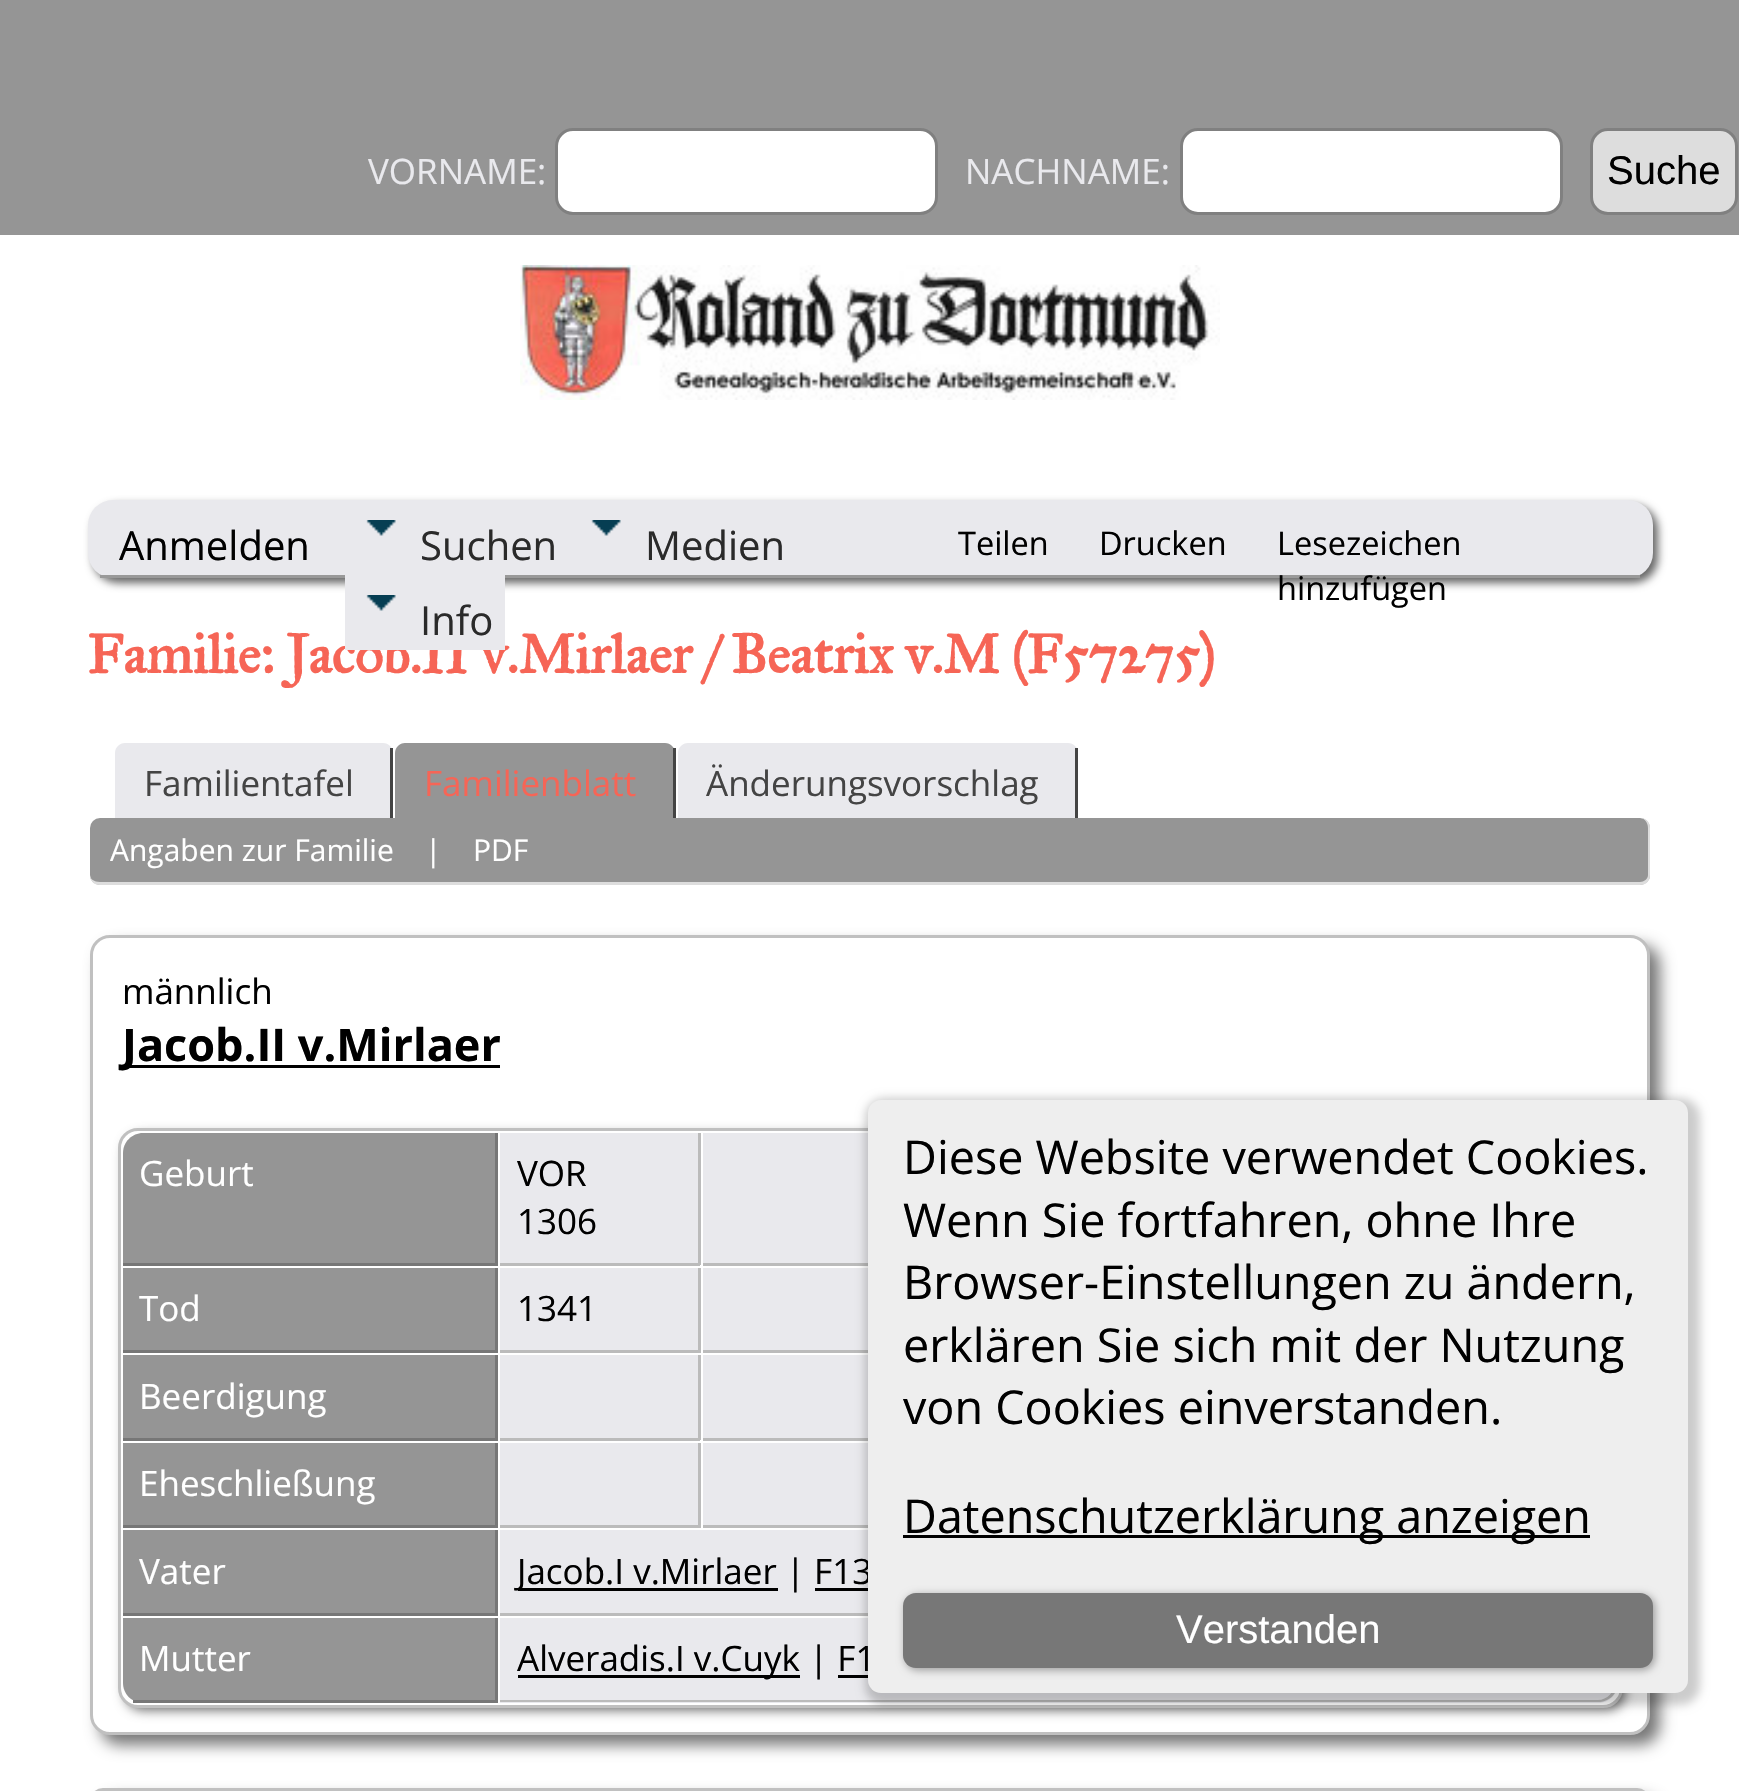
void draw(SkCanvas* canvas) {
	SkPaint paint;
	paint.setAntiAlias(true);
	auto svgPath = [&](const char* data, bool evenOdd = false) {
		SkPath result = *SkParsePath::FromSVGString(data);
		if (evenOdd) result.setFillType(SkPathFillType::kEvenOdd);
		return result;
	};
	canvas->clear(0xffffffff);
	paint.setColor(0xff959595);
	canvas->drawRect(SkRect::MakeXYWH(0, 0, 1739, 235), paint);
	SkFont f1(fontMgr->matchFamilyStyle("Open Sans", SkFontStyle::Normal()), 35);
	f1.setSubpixel(true);
	paint.setColor(0xffe9e9ed);
	canvas->drawString("VORNAME:", 368, 184, f1, paint);
	paint.setColor(0xffffffff);
	canvas->drawRoundRect(SkRect::MakeXYWH(556.5, 129.5, 380, 84), 16.5, 16.5, paint);
	paint.setStroke(true);
	paint.setStrokeWidth(3);
	paint.setColor(0xff808080);
	canvas->drawRoundRect(SkRect::MakeXYWH(556.5, 129.5, 380, 84), 16.5, 16.5, paint);
	paint.setStroke(false);
	paint.setColor(0xffe9e9ed);
	canvas->drawString("NACHNAME:", 965, 184, f1, paint);
	paint.setColor(0xffffffff);
	canvas->drawRoundRect(SkRect::MakeXYWH(1181.5, 129.5, 380, 84), 16.5, 16.5, paint);
	paint.setStroke(true);
	paint.setColor(0xff808080);
	canvas->drawRoundRect(SkRect::MakeXYWH(1181.5, 129.5, 380, 84), 16.5, 16.5, paint);
	paint.setStroke(false);
	paint.setColor(0xffdddddd);
	canvas->drawRoundRect(SkRect::MakeXYWH(1591.5, 129.5, 145, 84), 16.5, 16.5, paint);
	paint.setStroke(true);
	paint.setColor(0xff808080);
	canvas->drawRoundRect(SkRect::MakeXYWH(1591.5, 129.5, 145, 84), 16.5, 16.5, paint);
	SkFont f2(fontMgr->matchFamilyStyle("Liberation Sans", SkFontStyle::Normal()), 40);
	f2.setSubpixel(true);
	paint.setStroke(false);
	paint.setColor(0xff000000);
	canvas->drawString("Suche", 1607, 184, f2, paint);
	paint.setColor(0xff666666);
	paint.setMaskFilter(SkMaskFilter::MakeBlur(kNormal_SkBlurStyle, 4));
	canvas->drawRoundRect(SkRect::MakeXYWH(93, 505, 1565, 78), 25, 25, paint);
	paint.setMaskFilter(nullptr);
	paint.setColor(0xffe9e9ed);
	canvas->drawRoundRect(SkRect::MakeXYWH(88, 500, 1565, 78), 25, 25, paint);
	paint.setColor(0xff999999);
	canvas->drawRect(SkRect::MakeXYWH(100, 575, 1540, 3), paint);
	SkFont f3(fontMgr->matchFamilyStyle("Open Sans", SkFontStyle::Normal()), 40);
	f3.setSubpixel(true);
	paint.setColor(0xff000000);
	canvas->drawString("Anmelden", 119, 560, f3, paint);
	canvas->drawImageRect(SkImages::DeferredFromEncodedData(SkData::MakeFromFileName("img1.png")), SkRect::MakeXYWH(366, 520, 30, 16), SkSamplingOptions());
	paint.setColor(0xff2a2a2a);
	canvas->drawString("Suchen", 420, 560, f3, paint);
	canvas->drawImageRect(SkImages::DeferredFromEncodedData(SkData::MakeFromFileName("img2.png")), SkRect::MakeXYWH(591, 520, 30, 16), SkSamplingOptions());
	canvas->drawString("Medien", 645, 560, f3, paint);
	SkFont f4(fontMgr->matchFamilyStyle("IM FELL Great Primer", SkFontStyle::Bold()), 55);
	f4.setSubpixel(true);
	paint.setColor(0xfff66556);
	canvas->drawString("Familie: Jacob.II v.Mirlaer / Beatrix v.M (F57275)", 87, 673, f4, paint);
	paint.setColor(0xffe9e9ed);
	canvas->drawRect(SkRect::MakeXYWH(345, 575, 160, 75), paint);
	canvas->drawImageRect(SkImages::DeferredFromEncodedData(SkData::MakeFromFileName("img1.png")), SkRect::MakeXYWH(366, 595, 30, 16), SkSamplingOptions());
	paint.setColor(0xff2a2a2a);
	canvas->drawString("Info", 420, 635, f3, paint);
	SkFont f5(fontMgr->matchFamilyStyle("Open Sans", SkFontStyle::Normal()), 32.5);
	f5.setSubpixel(true);
	paint.setColor(0xff000000);
	canvas->drawString("Teilen", 958, 555, f5, paint);
	canvas->drawString("Drucken", 1099, 555, f5, paint);
	canvas->drawString("Lesezeichen", 1277, 555, f5, paint);
	canvas->drawString("hinzufügen", 1277, 600, f5, paint);
	paint.setColor(0xffe9e9ed);
	canvas->drawPath(svgPath("M125 743H383C388.5 743 393 747.5 393 753V818H115V753C115 747.5 119.5 743 125 743Z"), paint);
	paint.setColor(0xff444444);
	canvas->drawRect(SkRect::MakeXYWH(390, 748, 3, 70), paint);
	canvas->drawString("Familientafel", 144, 796, f1, paint);
	paint.setColor(0xff959595);
	canvas->drawPath(svgPath("M405 743H665C670.5 743 675 747.5 675 753V818H395V753C395 747.5 399.5 743 405 743Z"), paint);
	paint.setColor(0xff444444);
	canvas->drawRect(SkRect::MakeXYWH(673, 748, 3, 70), paint);
	paint.setColor(0xfff66556);
	canvas->drawString("Familienblatt", 424, 796, f1, paint);
	paint.setColor(0xffe9e9ed);
	canvas->drawPath(svgPath("M688 743H1068C1073.5 743 1078 747.5 1078 753V818H678V753C678 747.5 682.5 743 688 743Z"), paint);
	paint.setColor(0xff444444);
	canvas->drawRect(SkRect::MakeXYWH(1075, 748, 3, 70), paint);
	canvas->drawString("Änderungsvorschlag", 706, 796, f1, paint);
	paint.setColor(0xff959595);
	canvas->drawRoundRect(SkRect::MakeXYWH(90, 818, 1560, 67), 10, 10, paint);
	paint.setColor(0xffdddddd);
	canvas->drawPath(svgPath("M100 818H1640C1646 818 1650 822 1650 828V875C1650 881 1646 885 1640 885H100C94 885 90 881 90 875V828C90 822 94 818 100 818ZM100 818H1640C1644 818 1648 822 1648 828V875C1648 879 1644 882 1640 882H100C94 882 90 879 90 875V828C90 822 94 818 100 818Z", true), paint);
	SkFont f6(fontMgr->matchFamilyStyle("Open Sans", SkFontStyle::Normal()), 30);
	f6.setSubpixel(true);
	paint.setColor(0xffffffff);
	canvas->drawString("Angaben zur Familie", 110, 861, f6, paint);
	canvas->drawString("|", 425, 861, f6, paint);
	canvas->drawString("PDF", 473, 861, f6, paint);
	paint.setColor(0xff777777);
	paint.setMaskFilter(SkMaskFilter::MakeBlur(kNormal_SkBlurStyle, 7.5));
	canvas->drawRoundRect(SkRect::MakeXYWH(100, 945, 1560, 800), 20, 20, paint);
	paint.setMaskFilter(nullptr);
	paint.setColor(0xffffffff);
	canvas->drawRoundRect(SkRect::MakeXYWH(91.5, 936.5, 1557, 797), 18.5, 18.5, paint);
	paint.setStroke(true);
	paint.setColor(0xffc0c0c0);
	canvas->drawRoundRect(SkRect::MakeXYWH(91.5, 936.5, 1557, 797), 18.5, 18.5, paint);
	paint.setStroke(false);
	paint.setColor(0xff000000);
	canvas->drawString("männlich", 122, 1004, f1, paint);
	canvas->drawRect(SkRect::MakeXYWH(123, 1065, 377, 3), paint);
	SkFont f7(fontMgr->matchFamilyStyle("Open Sans", SkFontStyle::Bold()), 45);
	f7.setSubpixel(true);
	canvas->drawString("Jacob.II v.Mirlaer", 122, 1061, f7, paint);
	paint.setColor(0xff666666);
	paint.setMaskFilter(SkMaskFilter::MakeBlur(kNormal_SkBlurStyle, 6));
	canvas->drawRoundRect(SkRect::MakeXYWH(125, 1135, 1500, 575), 18, 18, paint);
	paint.setMaskFilter(nullptr);
	paint.setColor(0xffffffff);
	canvas->drawRoundRect(SkRect::MakeXYWH(119.5, 1129.5, 1502, 577), 18.5, 18.5, paint);
	paint.setStroke(true);
	paint.setColor(0xffc0c0c0);
	canvas->drawRoundRect(SkRect::MakeXYWH(119.5, 1129.5, 1502, 577), 18.5, 18.5, paint);
	paint.setStroke(false);
	paint.setColor(0xff959595);
	canvas->drawPath(svgPath("M143 1133H498V1265H123V1153C123 1142 132 1133 143 1133Z"), paint);
	paint.setColor(0xff777777);
	canvas->drawRect(SkRect::MakeXYWH(495, 1133, 3, 132), paint);
	canvas->drawRect(SkRect::MakeXYWH(123, 1263, 375, 3), paint);
	paint.setColor(0xffffffff);
	canvas->drawString("Geburt", 139, 1186, f1, paint);
	paint.setColor(0xffe9e9ed);
	canvas->drawRect(SkRect::MakeXYWH(500, 1133, 198, 130), paint);
	paint.setColor(0xffbbbbbb);
	canvas->drawRect(SkRect::MakeXYWH(698, 1133, 3, 132), paint);
	canvas->drawRect(SkRect::MakeXYWH(500, 1263, 200, 3), paint);
	paint.setColor(0xff000000);
	canvas->drawString("VOR", 517, 1186, f1, paint);
	canvas->drawString("1306", 517, 1234, f1, paint);
	paint.setColor(0xffe9e9ed);
	canvas->drawRect(SkRect::MakeXYWH(703, 1133, 165, 130), paint);
	paint.setColor(0xffbbbbbb);
	canvas->drawRect(SkRect::MakeXYWH(703, 1263, 165, 3), paint);
	paint.setColor(0xff959595);
	canvas->drawRect(SkRect::MakeXYWH(123, 1268, 372, 82), paint);
	paint.setColor(0xff777777);
	canvas->drawRect(SkRect::MakeXYWH(495, 1268, 3, 85), paint);
	canvas->drawRect(SkRect::MakeXYWH(123, 1350, 375, 3), paint);
	paint.setColor(0xffffffff);
	canvas->drawString("Tod", 139, 1321, f1, paint);
	paint.setColor(0xffe9e9ed);
	canvas->drawRect(SkRect::MakeXYWH(500, 1268, 198, 82), paint);
	paint.setColor(0xffbbbbbb);
	canvas->drawRect(SkRect::MakeXYWH(698, 1268, 3, 85), paint);
	canvas->drawRect(SkRect::MakeXYWH(500, 1350, 200, 3), paint);
	paint.setColor(0xff000000);
	canvas->drawString("1341", 517, 1321, f1, paint);
	paint.setColor(0xffe9e9ed);
	canvas->drawRect(SkRect::MakeXYWH(703, 1268, 165, 82), paint);
	paint.setColor(0xffbbbbbb);
	canvas->drawRect(SkRect::MakeXYWH(703, 1350, 165, 3), paint);
	paint.setColor(0xff959595);
	canvas->drawRect(SkRect::MakeXYWH(123, 1355, 372, 83), paint);
	paint.setColor(0xff777777);
	canvas->drawRect(SkRect::MakeXYWH(495, 1355, 3, 85), paint);
	canvas->drawRect(SkRect::MakeXYWH(123, 1438, 375, 3), paint);
	paint.setColor(0xffffffff);
	canvas->drawString("Beerdigung", 139, 1409, f1, paint);
	paint.setColor(0xffe9e9ed);
	canvas->drawRect(SkRect::MakeXYWH(500, 1355, 198, 83), paint);
	paint.setColor(0xffbbbbbb);
	canvas->drawRect(SkRect::MakeXYWH(698, 1355, 3, 85), paint);
	canvas->drawRect(SkRect::MakeXYWH(500, 1438, 200, 3), paint);
	paint.setColor(0xffe9e9ed);
	canvas->drawRect(SkRect::MakeXYWH(703, 1355, 165, 83), paint);
	paint.setColor(0xffbbbbbb);
	canvas->drawRect(SkRect::MakeXYWH(703, 1438, 165, 3), paint);
	paint.setColor(0xff959595);
	canvas->drawRect(SkRect::MakeXYWH(123, 1443, 372, 82), paint);
	paint.setColor(0xff777777);
	canvas->drawRect(SkRect::MakeXYWH(495, 1443, 3, 85), paint);
	canvas->drawRect(SkRect::MakeXYWH(123, 1525, 375, 3), paint);
	paint.setColor(0xffffffff);
	canvas->drawString("Eheschließung", 139, 1496, f1, paint);
	paint.setColor(0xffe9e9ed);
	canvas->drawRect(SkRect::MakeXYWH(500, 1443, 198, 82), paint);
	paint.setColor(0xffbbbbbb);
	canvas->drawRect(SkRect::MakeXYWH(698, 1443, 3, 85), paint);
	canvas->drawRect(SkRect::MakeXYWH(500, 1525, 200, 3), paint);
	paint.setColor(0xffe9e9ed);
	canvas->drawRect(SkRect::MakeXYWH(703, 1443, 165, 82), paint);
	paint.setColor(0xffbbbbbb);
	canvas->drawRect(SkRect::MakeXYWH(703, 1525, 165, 3), paint);
	paint.setColor(0xff959595);
	canvas->drawRect(SkRect::MakeXYWH(123, 1530, 372, 83), paint);
	paint.setColor(0xff777777);
	canvas->drawRect(SkRect::MakeXYWH(495, 1530, 3, 85), paint);
	canvas->drawRect(SkRect::MakeXYWH(123, 1613, 375, 3), paint);
	paint.setColor(0xffffffff);
	canvas->drawString("Vater", 139, 1584, f1, paint);
	paint.setColor(0xffe9e9ed);
	canvas->drawRect(SkRect::MakeXYWH(500, 1530, 368, 83), paint);
	paint.setColor(0xffbbbbbb);
	canvas->drawRect(SkRect::MakeXYWH(500, 1613, 368, 3), paint);
	paint.setColor(0xff000000);
	canvas->drawRect(SkRect::MakeXYWH(518, 1588, 260, 3), paint);
	canvas->drawString("Jacob.I v.Mirlaer | F13", 517, 1584, f1, paint);
	canvas->drawRect(SkRect::MakeXYWH(815, 1588, 53, 3), paint);
	paint.setColor(0xff959595);
	canvas->drawPath(svgPath("M123 1618H498V1703H143C132 1703 123 1694 123 1683Z"), paint);
	paint.setColor(0xff777777);
	canvas->drawRect(SkRect::MakeXYWH(495, 1618, 3, 85), paint);
	canvas->drawRect(SkRect::MakeXYWH(133, 1700, 365, 3), paint);
	paint.setColor(0xffffffff);
	canvas->drawString("Mutter", 139, 1671, f1, paint);
	paint.setColor(0xffe9e9ed);
	canvas->drawPath(svgPath("M500 1618H1618V1683C1618 1694 1609 1703 1598 1703H500Z"), paint);
	paint.setColor(0xffbbbbbb);
	canvas->drawPath(svgPath("M500 1618H1618V1682C1618 1694 1609 1702 1598 1702H500ZM500 1618H1615V1682C1615 1692 1607 1700 1598 1700H500Z", true), paint);
	paint.setColor(0xff000000);
	canvas->drawRect(SkRect::MakeXYWH(518, 1675, 282, 3), paint);
	canvas->drawString("Alveradis.I v.Cuyk | F1", 517, 1671, f1, paint);
	canvas->drawRect(SkRect::MakeXYWH(838, 1675, 30, 3), paint);
	paint.setColor(0xff777777);
	paint.setMaskFilter(SkMaskFilter::MakeBlur(kNormal_SkBlurStyle, 7.5));
	canvas->drawRoundRect(SkRect::MakeXYWH(100, 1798, 1560, 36), 20, 20, paint);
	paint.setMaskFilter(nullptr);
	paint.setStroke(true);
	paint.setColor(0xffc0c0c0);
	canvas->drawRoundRect(SkRect::MakeXYWH(91.5, 1789.5, 1557, 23), 18.5, 18.5, paint);
	paint.setStroke(false);
	paint.setColor(0x33000000);
	paint.setMaskFilter(SkMaskFilter::MakeBlur(kNormal_SkBlurStyle, 5));
	canvas->drawRoundRect(SkRect::MakeXYWH(865, 1098, 835, 607), 20, 20, paint);
	paint.setMaskFilter(nullptr);
	paint.setColor(0xffeeeeee);
	canvas->drawRoundRect(SkRect::MakeXYWH(868, 1100, 820, 593), 13, 13, paint);
	SkFont f8(fontMgr->matchFamilyStyle("Open Sans", SkFontStyle::Normal()), 46.7);
	f8.setSubpixel(true);
	paint.setColor(0xff000000);
	canvas->drawString("Diese Website verwendet Cookies.", 903, 1174, f8, paint);
	canvas->drawString("Wenn Sie fortfahren, ohne Ihre", 903, 1237, f8, paint);
	canvas->drawString("Browser-Einstellungen zu ändern,", 903, 1299, f8, paint);
	canvas->drawString("erklären Sie sich mit der Nutzung", 903, 1362, f8, paint);
	canvas->drawString("von Cookies einverstanden.", 903, 1424, f8, paint);
	canvas->drawRect(SkRect::MakeXYWH(903, 1535, 687, 3), paint);
	canvas->drawString("Datenschutzerklärung anzeigen", 903, 1533, f8, paint);
	paint.setColor(0xff999999);
	paint.setMaskFilter(SkMaskFilter::MakeBlur(kNormal_SkBlurStyle, 4));
	canvas->drawRoundRect(SkRect::MakeXYWH(905, 1595, 750, 75), 13, 13, paint);
	paint.setMaskFilter(nullptr);
	paint.setColor(0xff777777);
	canvas->drawRoundRect(SkRect::MakeXYWH(903, 1593, 750, 75), 13, 13, paint);
	paint.setColor(0xffffffff);
	canvas->drawString("Verstanden", 1176, 1643, f2, paint);
	canvas->drawImageRect(SkImages::DeferredFromEncodedData(SkData::MakeFromFileName("img3.png")), SkRect::MakeXYWH(520, 265, 700, 135), SkSamplingOptions());
}
